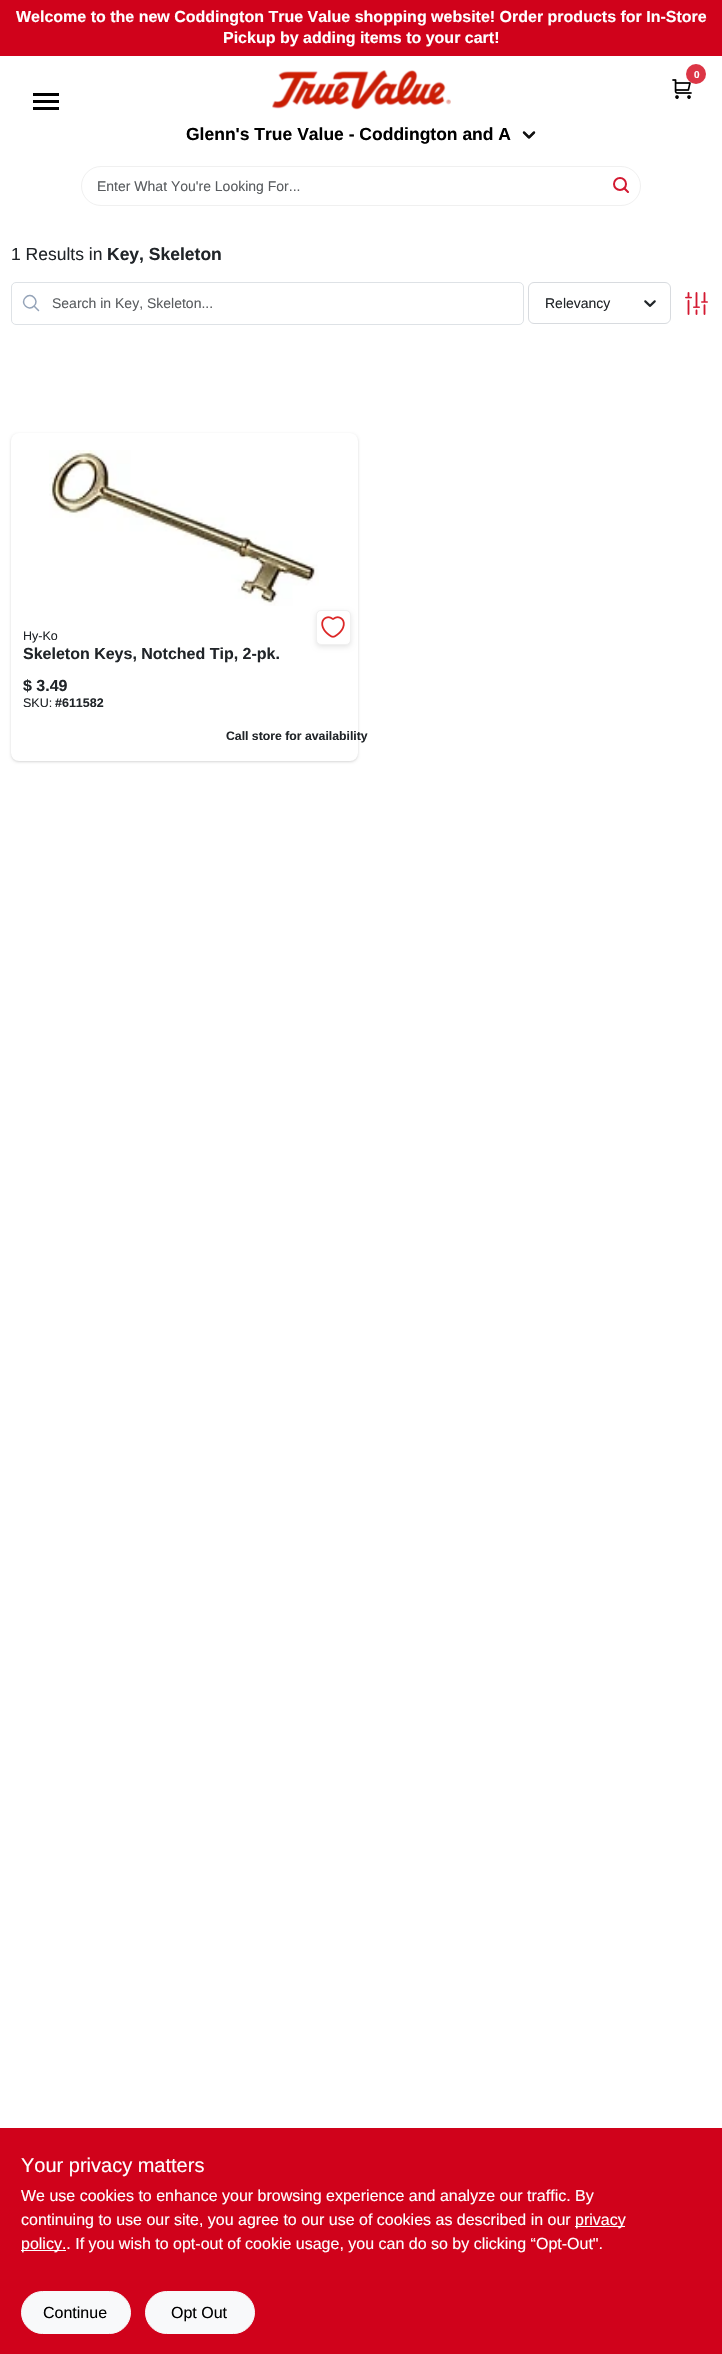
void draw(SkCanvas* canvas) {
	SkPaint paint;
	paint.setAntiAlias(true);
	auto spacedText = [&](const char* s, float x, float y, const SkFont& font, const SkPaint& ink, float letter, float word) {
		std::vector<SkGlyphID> glyphs(font.countText(s, strlen(s), SkTextEncoding::kUTF8));
		std::vector<float> xs(glyphs.size());
		font.textToGlyphs(s, strlen(s), SkTextEncoding::kUTF8, glyphs);
		font.getXPos(glyphs, xs, x);
		float extra = 0;
		for (size_t i = 0; i < glyphs.size(); i++) {
			xs[i] += extra;
			extra += letter + word * (glyphs[i] == font.unicharToGlyph(' '));
		}
		canvas->drawTextBlob(SkTextBlob::MakeFromPosHGlyphs(glyphs, xs, y, font), 0, 0, ink);
	};
	auto svgPath = [&](const char* data, bool evenOdd = false) {
		SkPath result = *SkParsePath::FromSVGString(data);
		if (evenOdd) result.setFillType(SkPathFillType::kEvenOdd);
		return result;
	};
	canvas->clear(0xffffffff);
	paint.setColor(0xffd0021b);
	canvas->drawRect(SkRect::MakeXYWH(0, 0, 722, 56), paint);
	SkFont f1(fontMgr->matchFamilyStyle("Liberation Sans", SkFontStyle::Bold()), 16);
	f1.setSubpixel(true);
	paint.setColor(0xffffffff);
	canvas->drawString("Welcome to the new Coddington True Value shopping website! Order products for In-Store", 16, 22, f1, paint);
	canvas->drawString("Pickup by adding items to your cart!", 223, 43, f1, paint);
	canvas->drawImageRect(SkImages::DeferredFromEncodedData(SkData::MakeFromFileName("img1.png")), SkRect::MakeXYWH(672, 79, 20, 20), SkSamplingOptions());
	paint.setColor(0xffdc3545);
	canvas->drawCircle(696, 74, 10, paint);
	SkFont f2(fontMgr->matchFamilyStyle("Liberation Sans", SkFontStyle::Bold()), 10);
	f2.setSubpixel(true);
	paint.setColor(0xffffffff);
	spacedText("0", 694, 78, f2, paint, -1, 0);
	paint.setColor(0xff000000);
	canvas->drawRect(SkRect::MakeXYWH(33, 93, 26, 3), paint);
	canvas->drawRect(SkRect::MakeXYWH(33, 100, 26, 3), paint);
	canvas->drawRect(SkRect::MakeXYWH(33, 107, 26, 3), paint);
	canvas->drawImageRect(SkImages::DeferredFromEncodedData(SkData::MakeFromFileName("img2.png")), SkRect::MakeXYWH(272, 70, 179, 40), SkSamplingOptions());
	SkFont f3(fontMgr->matchFamilyStyle("Liberation Sans", SkFontStyle::Bold()), 17.5);
	f3.setSubpixel(true);
	canvas->drawString("Glenn's True Value - Coddington and A", 186, 140, f3, paint);
	canvas->drawImageRect(SkImages::DeferredFromEncodedData(SkData::MakeFromFileName("img3.png")), SkRect::MakeXYWH(522, 131, 14, 8), SkSamplingOptions());
	paint.setStroke(true);
	paint.setStrokeWidth(1);
	paint.setColor(0xfff0f0f0);
	canvas->drawRoundRect(SkRect::MakeXYWH(81.5, 166.5, 559, 39), 19.5, 19.5, paint);
	SkFont f4(fontMgr->matchFamilyStyle("Liberation Sans", SkFontStyle::Normal()), 14);
	f4.setSubpixel(true);
	paint.setStroke(false);
	paint.setColor(0xff595c5f);
	canvas->drawString("Enter What You're Looking For...", 97, 191, f4, paint);
	canvas->drawImageRect(SkImages::DeferredFromEncodedData(SkData::MakeFromFileName("img4.png")), SkRect::MakeXYWH(613, 177, 16, 16), SkSamplingOptions());
	SkFont f5(fontMgr->matchFamilyStyle("Liberation Sans", SkFontStyle::Normal()), 17.5);
	f5.setSubpixel(true);
	paint.setColor(0xff212529);
	canvas->drawString("1 Results in", 11, 260, f5, paint);
	canvas->drawString("Key, Skeleton", 107, 260, f3, paint);
	paint.setStroke(true);
	paint.setStrokeWidth(1.5);
	paint.setStrokeCap(SkPaint::kRound_Cap);
	paint.setStrokeJoin(SkPaint::kRound_Join);
	paint.setColor(0xff94a3b8);
	canvas->drawPath(svgPath("M38.5 310.5L34 306M34 306C40 300.5 31 291.5 25.5 297.5C19.5 303 28.5 312 34 306Z"), paint);
	paint.setStrokeWidth(1);
	paint.setStrokeCap(SkPaint::kButt_Cap);
	paint.setStrokeJoin(SkPaint::kMiter_Join);
	paint.setColor(0xffdee2e6);
	canvas->drawRoundRect(SkRect::MakeXYWH(11.5, 282.5, 512, 42), 4.5, 4.5, paint);
	paint.setStroke(false);
	paint.setColor(0xff595c5f);
	canvas->drawString("Search in Key, Skeleton...", 52, 308, f4, paint);
	paint.setStroke(true);
	paint.setColor(0xffd8dbdf);
	canvas->drawRoundRect(SkRect::MakeXYWH(528.5, 282.5, 142, 41), 5.5, 5.5, paint);
	paint.setStroke(false);
	paint.setColor(0xff212529);
	canvas->drawString("Relevancy", 545, 308, f4, paint);
	canvas->drawImageRect(SkImages::DeferredFromEncodedData(SkData::MakeFromFileName("img5.png")), SkRect::MakeXYWH(644, 300, 12, 7), SkSamplingOptions());
	canvas->drawImageRect(SkImages::DeferredFromEncodedData(SkData::MakeFromFileName("img6.png")), SkRect::MakeXYWH(685, 292, 23, 23), SkSamplingOptions());
	paint.setColor(0x0f000000);
	paint.setMaskFilter(SkMaskFilter::MakeBlur(kNormal_SkBlurStyle, 1));
	canvas->drawRoundRect(SkRect::MakeXYWH(11, 434, 347, 328), 8, 8, paint);
	paint.setMaskFilter(nullptr);
	paint.setColor(0x1a000000);
	paint.setMaskFilter(SkMaskFilter::MakeBlur(kNormal_SkBlurStyle, 1.5));
	canvas->drawRoundRect(SkRect::MakeXYWH(11, 434, 347, 328), 8, 8, paint);
	paint.setMaskFilter(nullptr);
	paint.setColor(0xffffffff);
	canvas->drawRoundRect(SkRect::MakeXYWH(11, 433, 347, 328), 8, 8, paint);
	canvas->drawImageRect(SkImages::DeferredFromEncodedData(SkData::MakeFromFileName("img7.png")), SkRect::MakeXYWH(49, 450, 270, 156), SkSamplingOptions());
	paint.setColor(0x1a000000);
	paint.setMaskFilter(SkMaskFilter::MakeBlur(kNormal_SkBlurStyle, 2.5));
	canvas->drawRoundRect(SkRect::MakeXYWH(316, 612, 35, 35), 5, 5, paint);
	paint.setMaskFilter(nullptr);
	paint.setColor(0xffffffff);
	canvas->drawRoundRect(SkRect::MakeXYWH(316.5, 610.5, 34, 34), 4.5, 4.5, paint);
	paint.setStroke(true);
	paint.setColor(0xfff0f0f0);
	canvas->drawRoundRect(SkRect::MakeXYWH(316.5, 610.5, 34, 34), 4.5, 4.5, paint);
	canvas->drawImageRect(SkImages::DeferredFromEncodedData(SkData::MakeFromFileName("img8.png")), SkRect::MakeXYWH(321, 616, 24, 22), SkSamplingOptions());
	SkFont f6(fontMgr->matchFamilyStyle("Liberation Sans", SkFontStyle::Normal()), 12.5);
	f6.setSubpixel(true);
	paint.setStroke(false);
	paint.setColor(0xff212529);
	canvas->drawString("Hy-Ko", 23, 640, f6, paint);
	canvas->drawString("Skeleton Keys, Notched Tip, 2-pk.", 23, 659, f1, paint);
	canvas->drawString("$ 3.49", 23, 691, f1, paint);
	canvas->drawString("SKU:", 23, 707, f6, paint);
	SkFont f7(fontMgr->matchFamilyStyle("Liberation Sans", SkFontStyle::Bold()), 12.5);
	f7.setSubpixel(true);
	canvas->drawString("#611582", 55, 707, f7, paint);
	SkFont f8(fontMgr->matchFamilyStyle("Liberation Sans", SkFontStyle::Bold()), 12.25);
	f8.setSubpixel(true);
	canvas->drawString("Call store for availability", 226, 740, f8, paint);
	paint.setColor(0xffd0021b);
	canvas->drawRect(SkRect::MakeXYWH(0, 2128, 722, 226), paint);
	SkFont f9(fontMgr->matchFamilyStyle("Liberation Sans", SkFontStyle::Normal()), 20);
	f9.setSubpixel(true);
	paint.setColor(0xffffffff);
	canvas->drawString("Your privacy matters", 21, 2172, f9, paint);
	SkFont f10(fontMgr->matchFamilyStyle("Liberation Sans", SkFontStyle::Normal()), 16);
	f10.setSubpixel(true);
	canvas->drawString("We use cookies to enhance your browsing experience and analyze our traffic. By", 21, 2201, f10, paint);
	canvas->drawString("continuing to use our site, you agree to our use of cookies as described in our", 21, 2225, f10, paint);
	canvas->drawRect(SkRect::MakeXYWH(575, 2226, 50, 1), paint);
	canvas->drawString("privacy", 575, 2225, f10, paint);
	canvas->drawRect(SkRect::MakeXYWH(21, 2250, 45, 1), paint);
	canvas->drawString("policy.. If you wish to opt-out of cookie usage, you can do so by clicking “Opt-Out\".", 21, 2249, f10, paint);
	paint.setColor(0xfff8f9fa);
	canvas->drawRoundRect(SkRect::MakeXYWH(21.5, 2291.5, 109, 42), 21, 21, paint);
	paint.setStroke(true);
	canvas->drawRoundRect(SkRect::MakeXYWH(21.5, 2291.5, 109, 42), 21, 21, paint);
	paint.setStroke(false);
	paint.setColor(0xff000000);
	canvas->drawString("Continue", 43, 2318, f10, paint);
	paint.setColor(0xfff8f9fa);
	canvas->drawRoundRect(SkRect::MakeXYWH(145.5, 2291.5, 109, 42), 21, 21, paint);
	paint.setStroke(true);
	canvas->drawRoundRect(SkRect::MakeXYWH(145.5, 2291.5, 109, 42), 21, 21, paint);
	paint.setStroke(false);
	paint.setColor(0xff000000);
	canvas->drawString("Opt Out", 171, 2318, f10, paint);
}
